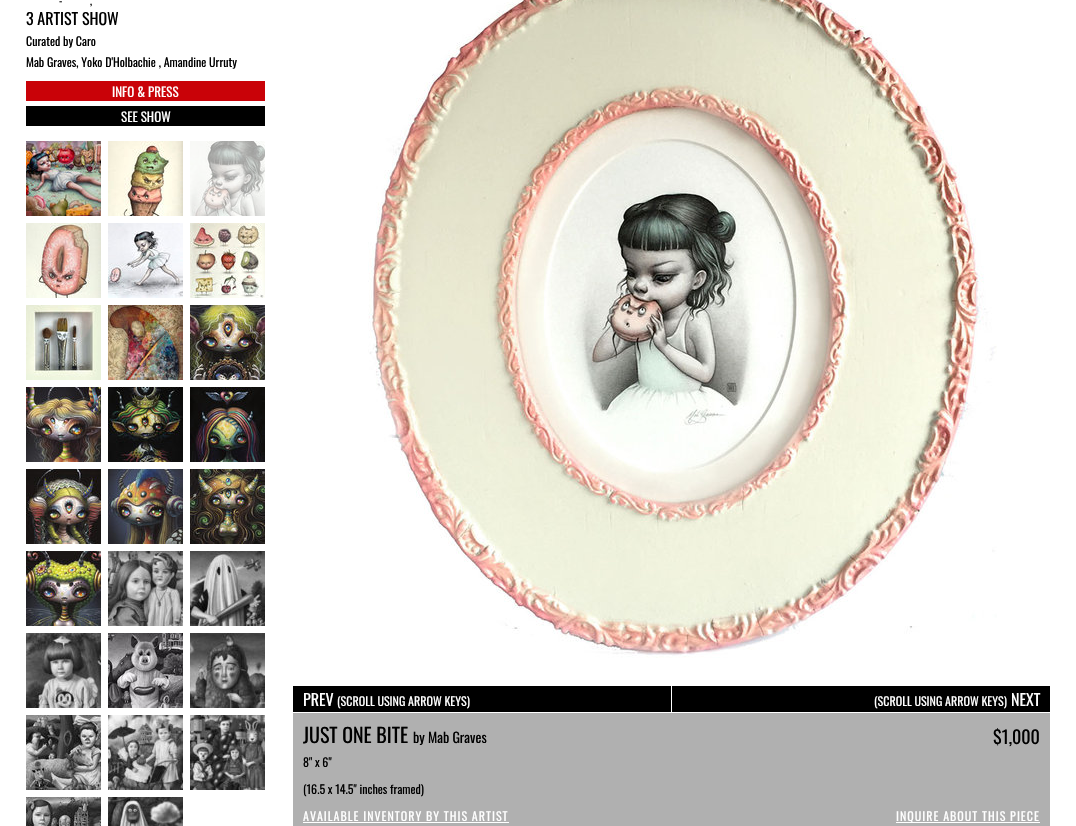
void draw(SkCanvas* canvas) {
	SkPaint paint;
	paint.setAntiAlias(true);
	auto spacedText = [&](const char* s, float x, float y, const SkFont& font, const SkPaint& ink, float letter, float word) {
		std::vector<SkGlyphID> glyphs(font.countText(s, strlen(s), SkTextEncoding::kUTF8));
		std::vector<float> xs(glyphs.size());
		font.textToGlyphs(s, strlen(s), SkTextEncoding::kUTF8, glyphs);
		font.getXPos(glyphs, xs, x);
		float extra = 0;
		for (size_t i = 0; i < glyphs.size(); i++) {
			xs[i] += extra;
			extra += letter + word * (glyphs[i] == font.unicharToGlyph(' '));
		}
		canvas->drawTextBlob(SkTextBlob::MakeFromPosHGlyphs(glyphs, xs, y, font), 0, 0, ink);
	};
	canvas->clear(0xffffffff);
	SkFont f1(fontMgr->matchFamilyStyle("Oswald", SkFontStyle::Normal()), 11);
	f1.setSubpixel(true);
	paint.setColor(0xff000000);
	canvas->drawString("-", 59, 5, f1, paint);
	canvas->drawString(",", 90, 5, f1, paint);
	SkFont f2(fontMgr->matchFamilyStyle("Oswald", SkFontStyle::Normal()), 16);
	f2.setSubpixel(true);
	canvas->drawString("3 ARTIST SHOW", 26, 25, f2, paint);
	SkFont f3(fontMgr->matchFamilyStyle("Oswald", SkFontStyle::Normal()), 12);
	f3.setSubpixel(true);
	canvas->drawString("Curated by Caro", 26, 46, f3, paint);
	canvas->drawString("Mab Graves, Yoko D'Holbachie , Amandine Urruty", 26, 67, f3, paint);
	paint.setColor(0xffc90208);
	canvas->drawRect(SkRect::MakeXYWH(26, 81, 239, 20), paint);
	SkFont f4(fontMgr->matchFamilyStyle("Oswald", SkFontStyle::Normal()), 13);
	f4.setSubpixel(true);
	paint.setColor(0xffffffff);
	canvas->drawString("INFO & PRESS", 112, 97, f4, paint);
	paint.setColor(0xff000000);
	canvas->drawRect(SkRect::MakeXYWH(26, 106, 239, 20), paint);
	paint.setColor(0xffffffff);
	canvas->drawString("SEE SHOW", 121, 122, f4, paint);
	canvas->drawImageRect(SkImages::DeferredFromEncodedData(SkData::MakeFromFileName("img1.png")), SkRect::MakeXYWH(26, 141, 75, 75), SkSamplingOptions());
	canvas->drawImageRect(SkImages::DeferredFromEncodedData(SkData::MakeFromFileName("img2.png")), SkRect::MakeXYWH(108, 141, 75, 75), SkSamplingOptions());
	canvas->drawImageRect(SkImages::DeferredFromEncodedData(SkData::MakeFromFileName("img3.png")), SkRect::MakeXYWH(190, 141, 75, 75), SkSamplingOptions());
	canvas->drawImageRect(SkImages::DeferredFromEncodedData(SkData::MakeFromFileName("img4.png")), SkRect::MakeXYWH(26, 223, 75, 75), SkSamplingOptions());
	canvas->drawImageRect(SkImages::DeferredFromEncodedData(SkData::MakeFromFileName("img5.png")), SkRect::MakeXYWH(108, 223, 75, 75), SkSamplingOptions());
	canvas->drawImageRect(SkImages::DeferredFromEncodedData(SkData::MakeFromFileName("img6.png")), SkRect::MakeXYWH(190, 223, 75, 75), SkSamplingOptions());
	canvas->drawImageRect(SkImages::DeferredFromEncodedData(SkData::MakeFromFileName("img7.png")), SkRect::MakeXYWH(26, 305, 75, 75), SkSamplingOptions());
	canvas->drawImageRect(SkImages::DeferredFromEncodedData(SkData::MakeFromFileName("img8.png")), SkRect::MakeXYWH(108, 305, 75, 75), SkSamplingOptions());
	canvas->drawImageRect(SkImages::DeferredFromEncodedData(SkData::MakeFromFileName("img9.png")), SkRect::MakeXYWH(190, 305, 75, 75), SkSamplingOptions());
	canvas->drawImageRect(SkImages::DeferredFromEncodedData(SkData::MakeFromFileName("img10.png")), SkRect::MakeXYWH(26, 387, 75, 75), SkSamplingOptions());
	canvas->drawImageRect(SkImages::DeferredFromEncodedData(SkData::MakeFromFileName("img11.png")), SkRect::MakeXYWH(108, 387, 75, 75), SkSamplingOptions());
	canvas->drawImageRect(SkImages::DeferredFromEncodedData(SkData::MakeFromFileName("img12.png")), SkRect::MakeXYWH(190, 387, 75, 75), SkSamplingOptions());
	canvas->drawImageRect(SkImages::DeferredFromEncodedData(SkData::MakeFromFileName("img13.png")), SkRect::MakeXYWH(26, 469, 75, 75), SkSamplingOptions());
	canvas->drawImageRect(SkImages::DeferredFromEncodedData(SkData::MakeFromFileName("img14.png")), SkRect::MakeXYWH(108, 469, 75, 75), SkSamplingOptions());
	canvas->drawImageRect(SkImages::DeferredFromEncodedData(SkData::MakeFromFileName("img15.png")), SkRect::MakeXYWH(190, 469, 75, 75), SkSamplingOptions());
	canvas->drawImageRect(SkImages::DeferredFromEncodedData(SkData::MakeFromFileName("img16.png")), SkRect::MakeXYWH(26, 551, 75, 75), SkSamplingOptions());
	canvas->drawImageRect(SkImages::DeferredFromEncodedData(SkData::MakeFromFileName("img17.png")), SkRect::MakeXYWH(108, 551, 75, 75), SkSamplingOptions());
	canvas->drawImageRect(SkImages::DeferredFromEncodedData(SkData::MakeFromFileName("img18.png")), SkRect::MakeXYWH(190, 551, 75, 75), SkSamplingOptions());
	canvas->drawImageRect(SkImages::DeferredFromEncodedData(SkData::MakeFromFileName("img19.png")), SkRect::MakeXYWH(26, 633, 75, 75), SkSamplingOptions());
	canvas->drawImageRect(SkImages::DeferredFromEncodedData(SkData::MakeFromFileName("img20.png")), SkRect::MakeXYWH(108, 633, 75, 75), SkSamplingOptions());
	canvas->drawImageRect(SkImages::DeferredFromEncodedData(SkData::MakeFromFileName("img21.png")), SkRect::MakeXYWH(190, 633, 75, 75), SkSamplingOptions());
	canvas->drawImageRect(SkImages::DeferredFromEncodedData(SkData::MakeFromFileName("img22.png")), SkRect::MakeXYWH(26, 715, 75, 75), SkSamplingOptions());
	canvas->drawImageRect(SkImages::DeferredFromEncodedData(SkData::MakeFromFileName("img23.png")), SkRect::MakeXYWH(108, 715, 75, 75), SkSamplingOptions());
	canvas->drawImageRect(SkImages::DeferredFromEncodedData(SkData::MakeFromFileName("img24.png")), SkRect::MakeXYWH(190, 715, 75, 75), SkSamplingOptions());
	canvas->drawImageRect(SkImages::DeferredFromEncodedData(SkData::MakeFromFileName("img25.png")), SkRect::MakeXYWH(26, 797, 75, 29), SkSamplingOptions());
	canvas->drawImageRect(SkImages::DeferredFromEncodedData(SkData::MakeFromFileName("img26.png")), SkRect::MakeXYWH(108, 797, 75, 29), SkSamplingOptions());
	canvas->drawImageRect(SkImages::DeferredFromEncodedData(SkData::MakeFromFileName("img27.png")), SkRect::MakeXYWH(368, 0, 629, 658), SkSamplingOptions());
	paint.setColor(0xff000000);
	canvas->drawRect(SkRect::MakeXYWH(293, 686, 378, 26), paint);
	paint.setColor(0xffffffff);
	canvas->drawString("PREV", 303, 706, f2, paint);
	canvas->drawString("(SCROLL USING ARROW KEYS)", 337, 706, f3, paint);
	paint.setColor(0xff000000);
	canvas->drawRect(SkRect::MakeXYWH(672, 686, 378, 26), paint);
	paint.setColor(0xffffffff);
	canvas->drawString("(SCROLL USING ARROW KEYS)", 874, 706, f3, paint);
	canvas->drawString("NEXT", 1011, 706, f2, paint);
	paint.setColor(0xffb0b0b0);
	canvas->drawRect(SkRect::MakeXYWH(293, 713, 757, 113), paint);
	SkFont f5(fontMgr->matchFamilyStyle("Oswald", SkFontStyle::Normal()), 20);
	f5.setSubpixel(true);
	paint.setColor(0xff000000);
	canvas->drawString("JUST ONE BITE", 303, 743, f5, paint);
	SkFont f6(fontMgr->matchFamilyStyle("Oswald", SkFontStyle::Normal()), 14);
	f6.setSubpixel(true);
	canvas->drawString("by Mab Graves", 413, 743, f6, paint);
	SkFont f7(fontMgr->matchFamilyStyle("Oswald", SkFontStyle::Normal()), 18);
	f7.setSubpixel(true);
	canvas->drawString("$1,000", 993, 744, f7, paint);
	canvas->drawString("8\" x 6\"", 303, 767, f3, paint);
	canvas->drawString("(16.5 x 14.5\" inches framed)", 303, 794, f3, paint);
	paint.setColor(0xffffffff);
	spacedText("AVAILABLE INVENTORY BY THIS ARTIST", 303, 821, f3, paint, 1, 0);
	canvas->drawRect(SkRect::MakeXYWH(303, 822, 206, 1), paint);
	canvas->drawRect(SkRect::MakeXYWH(896, 822, 144, 1), paint);
	spacedText("INQUIRE ABOUT THIS PIECE", 896, 821, f3, paint, 1, 0);
}
